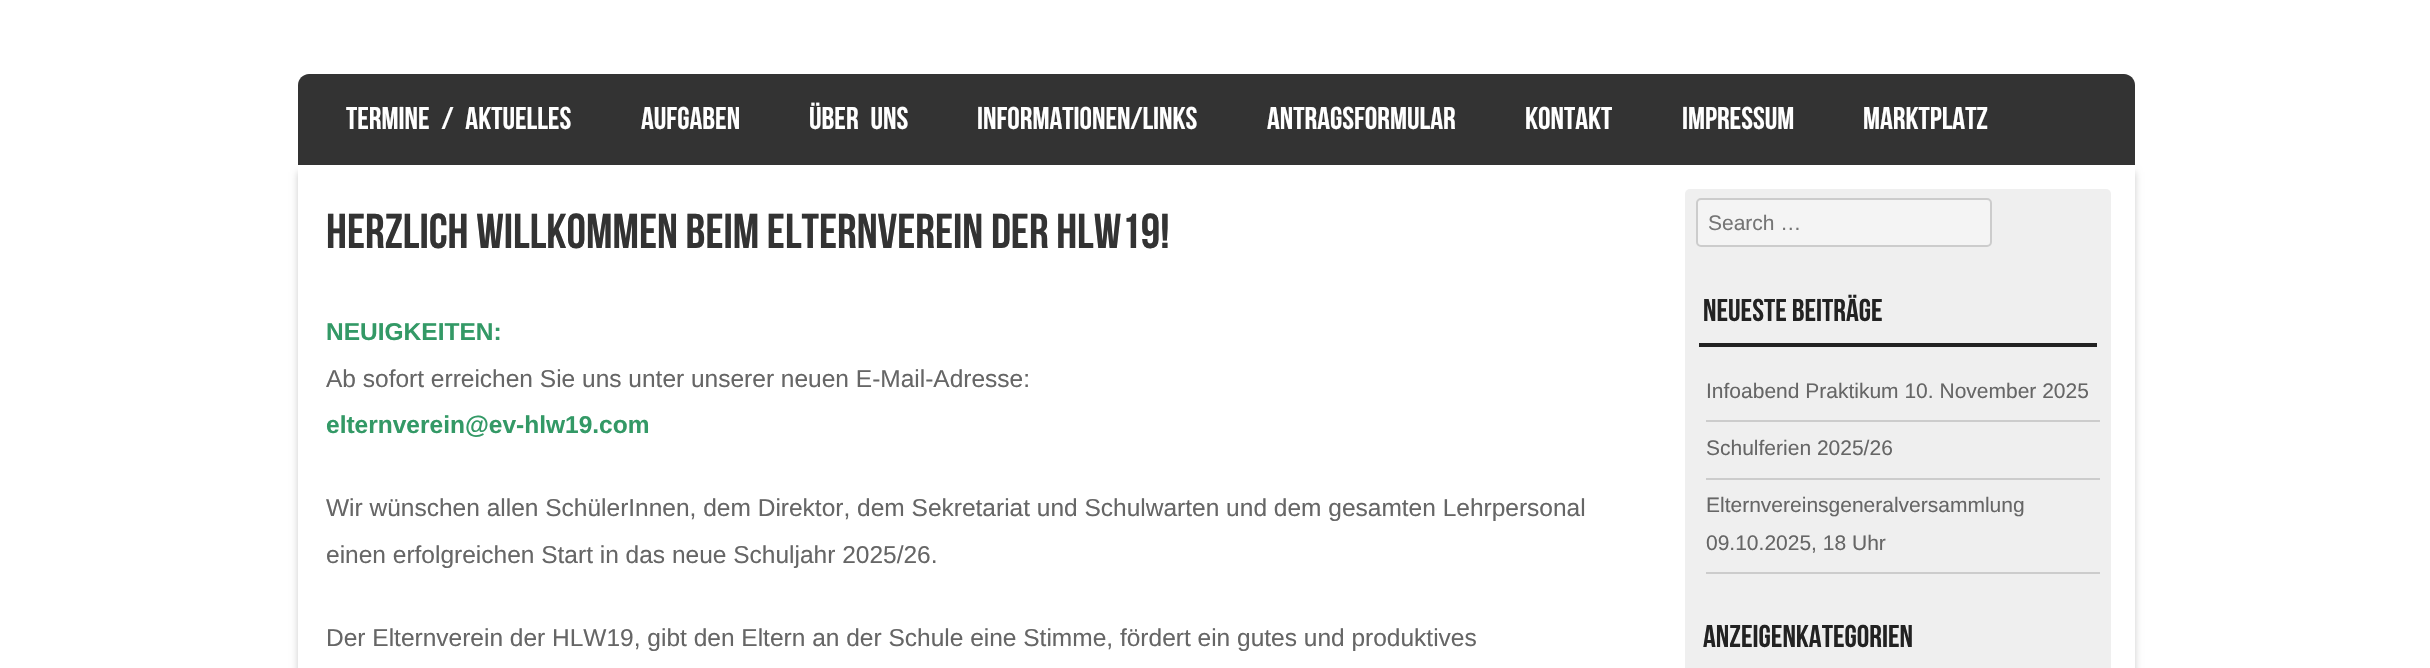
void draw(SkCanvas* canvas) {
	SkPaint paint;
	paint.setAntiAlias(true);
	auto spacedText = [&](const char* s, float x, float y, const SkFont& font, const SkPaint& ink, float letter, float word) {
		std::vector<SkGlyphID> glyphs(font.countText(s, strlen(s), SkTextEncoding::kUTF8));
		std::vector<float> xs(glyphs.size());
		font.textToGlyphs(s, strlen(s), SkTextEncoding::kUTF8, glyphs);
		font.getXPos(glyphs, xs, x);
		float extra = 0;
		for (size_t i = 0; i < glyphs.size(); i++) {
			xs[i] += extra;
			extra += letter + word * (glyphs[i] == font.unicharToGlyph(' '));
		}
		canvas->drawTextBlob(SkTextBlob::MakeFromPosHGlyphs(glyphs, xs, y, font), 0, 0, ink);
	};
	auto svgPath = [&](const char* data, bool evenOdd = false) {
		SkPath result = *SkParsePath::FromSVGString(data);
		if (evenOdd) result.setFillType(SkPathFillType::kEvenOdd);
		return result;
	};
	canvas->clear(0xffffffff);
	paint.setColor(0xff333333);
	canvas->drawPath(svgPath("M309 74H2124C2130 74 2135 79 2135 85V165H298V85C298 79 303 74 309 74Z"), paint);
	SkFont f1(fontMgr->matchFamilyStyle("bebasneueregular", SkFontStyle::Normal()), 31.5);
	f1.setSubpixel(true);
	paint.setColor(0xffffffff);
	spacedText("TERMINE / AKTUELLES", 346, 129, f1, paint, 0, 7);
	canvas->drawString("AUFGABEN", 641, 129, f1, paint);
	spacedText("ÜBER UNS", 809, 129, f1, paint, 0, 7);
	canvas->drawString("INFORMATIONEN/LINKS", 977, 129, f1, paint);
	canvas->drawString("ANTRAGSFORMULAR", 1267, 129, f1, paint);
	canvas->drawString("KONTAKT", 1525, 129, f1, paint);
	canvas->drawString("IMPRESSUM", 1682, 129, f1, paint);
	canvas->drawString("MARKTPLATZ", 1863, 129, f1, paint);
	canvas->save();
	canvas->clipPath(svgPath("M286 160H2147V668H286ZM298 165H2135V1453H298Z", true), true);
	paint.setColor(0x33000000);
	paint.setMaskFilter(SkMaskFilter::MakeBlur(kNormal_SkBlurStyle, 3.5));
	canvas->drawRect(SkRect::MakeXYWH(298, 172, 1837, 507), paint);
	paint.setMaskFilter(nullptr);
	canvas->restore();
	SkFont f2(fontMgr->matchFamilyStyle("bebasneueregular", SkFontStyle::Normal()), 49);
	f2.setSubpixel(true);
	paint.setColor(0xff333333);
	canvas->drawString("Herzlich willkommen beim Elternverein der HLW19!", 326, 248, f2, paint);
	SkFont f3(fontMgr->matchFamilyStyle("Liberation Sans", SkFontStyle::Bold()), 24.5);
	f3.setSubpixel(true);
	paint.setColor(0xff339966);
	canvas->drawString("NEUIGKEITEN:", 326, 340, f3, paint);
	SkFont f4(fontMgr->matchFamilyStyle("Liberation Sans", SkFontStyle::Normal()), 24.5);
	f4.setSubpixel(true);
	paint.setColor(0xff666666);
	canvas->drawString("Ab sofort erreichen Sie uns unter unserer neuen E-Mail-Adresse:", 326, 387, f4, paint);
	paint.setColor(0xff339966);
	canvas->drawString("elternverein@ev-hlw19.com", 326, 433, f3, paint);
	paint.setColor(0xff666666);
	canvas->drawString("Wir wünschen allen SchülerInnen, dem Direktor, dem Sekretariat und Schulwarten und dem gesamten Lehrpersonal", 326, 516, f4, paint);
	canvas->drawString("einen erfolgreichen Start in das neue Schuljahr 2025/26.", 326, 563, f4, paint);
	canvas->drawString("Der Elternverein der HLW19, gibt den Eltern an der Schule eine Stimme, fördert ein gutes und produktives", 326, 646, f4, paint);
	paint.setColor(0xffefefef);
	canvas->drawRoundRect(SkRect::MakeXYWH(1685, 189, 426, 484), 5, 5, paint);
	paint.setColor(0xfff4f4f4);
	canvas->drawRoundRect(SkRect::MakeXYWH(1697, 199, 294, 47), 4, 4, paint);
	paint.setStroke(true);
	paint.setStrokeWidth(2);
	paint.setColor(0xffcccccc);
	canvas->drawRoundRect(SkRect::MakeXYWH(1697, 199, 294, 47), 4, 4, paint);
	SkFont f5(fontMgr->matchFamilyStyle("Liberation Sans", SkFontStyle::Normal()), 21);
	f5.setSubpixel(true);
	paint.setStroke(false);
	paint.setColor(0xff757575);
	canvas->drawString("Search …", 1708, 230, f5, paint);
	paint.setColor(0xff222222);
	canvas->drawRect(SkRect::MakeXYWH(1699, 343, 398, 4), paint);
	canvas->drawString("Neueste Beiträge", 1703, 321, f1, paint);
	paint.setColor(0xffcccccc);
	canvas->drawRect(SkRect::MakeXYWH(1706, 420, 394, 2), paint);
	paint.setColor(0xff666666);
	canvas->drawString("Infoabend Praktikum 10. November 2025", 1706, 398, f5, paint);
	paint.setColor(0xffcccccc);
	canvas->drawRect(SkRect::MakeXYWH(1706, 478, 394, 2), paint);
	paint.setColor(0xff666666);
	canvas->drawString("Schulferien 2025/26", 1706, 455, f5, paint);
	paint.setColor(0xffcccccc);
	canvas->drawRect(SkRect::MakeXYWH(1706, 572, 394, 2), paint);
	paint.setColor(0xff666666);
	canvas->drawString("Elternvereinsgeneralversammlung", 1706, 512, f5, paint);
	canvas->drawString("09.10.2025, 18 Uhr", 1706, 550, f5, paint);
	paint.setColor(0xff222222);
	canvas->drawString("Anzeigenkategorien", 1703, 647, f1, paint);
}
